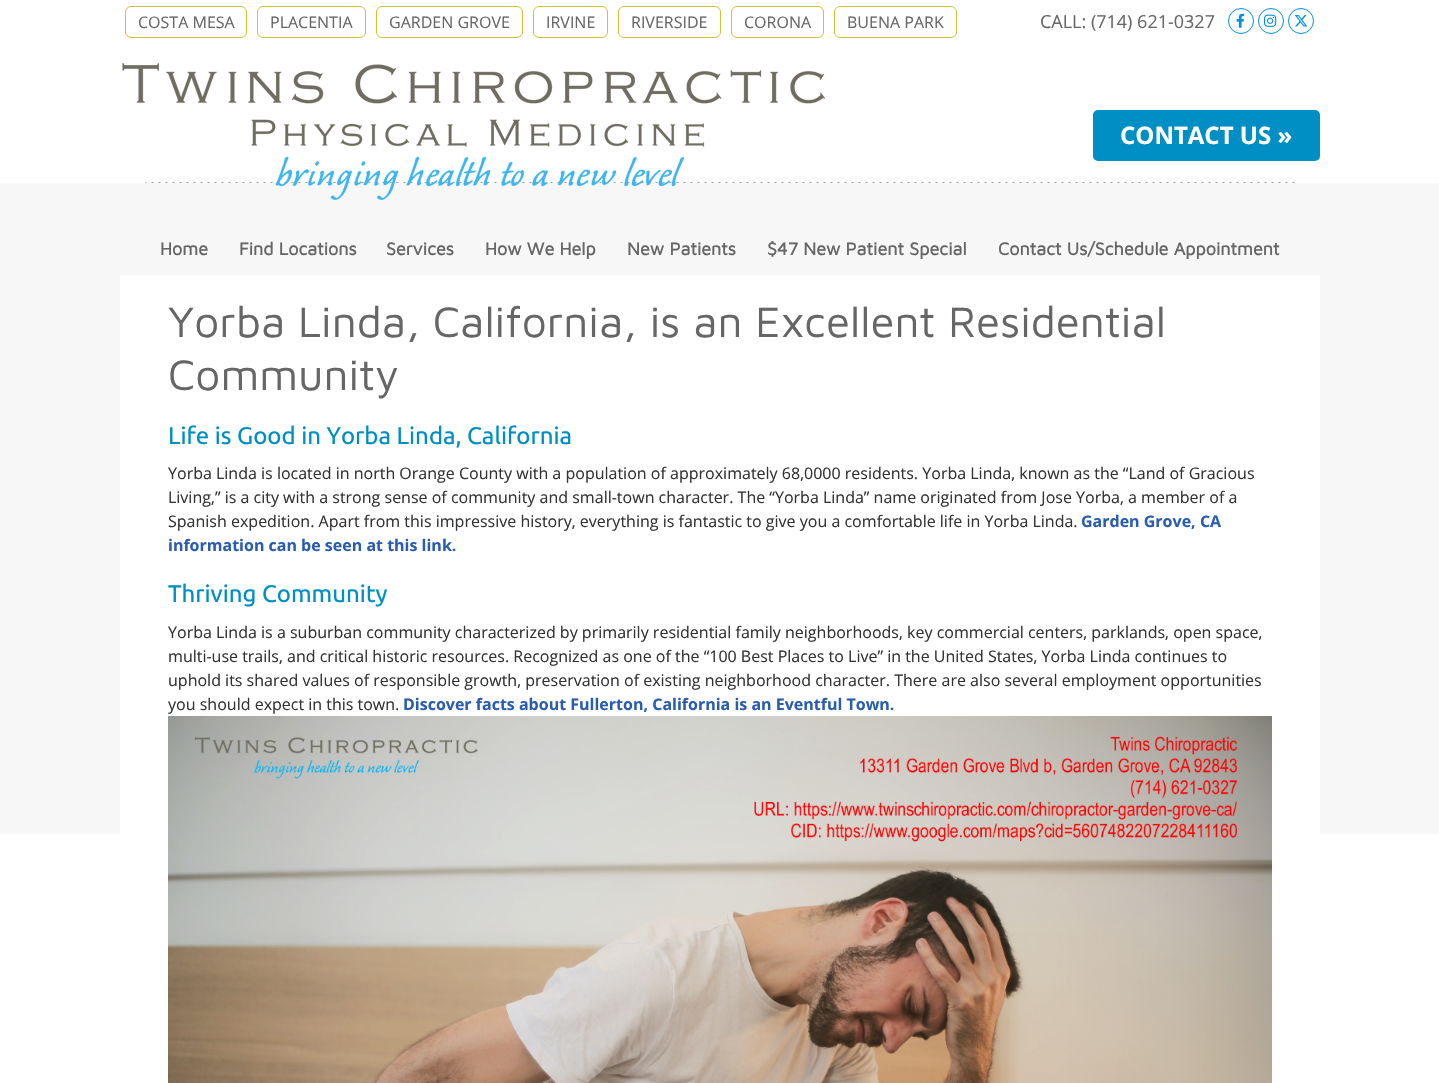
void draw(SkCanvas* canvas) {
	SkPaint paint;
	paint.setAntiAlias(true);
	canvas->clear(0xffffffff);
	canvas->drawImageRect(SkImages::DeferredFromEncodedData(SkData::MakeFromFileName("img1.png")), SkRect::MakeXYWH(0, 40, 1439, 794), SkSamplingOptions());
	paint.setStroke(true);
	paint.setStrokeWidth(1);
	paint.setColor(0xffd2c133);
	canvas->drawRoundRect(SkRect::MakeXYWH(125.5, 6.5, 121, 31), 5.5, 5.5, paint);
	SkFont f1(fontMgr->matchFamilyStyle("Open Sans", SkFontStyle::Normal()), 16);
	f1.setSubpixel(true);
	paint.setStroke(false);
	paint.setColor(0xff666666);
	canvas->drawString("COSTA MESA", 138, 28, f1, paint);
	paint.setStroke(true);
	paint.setColor(0xffd2c133);
	canvas->drawRoundRect(SkRect::MakeXYWH(257.5, 6.5, 108, 31), 5.5, 5.5, paint);
	paint.setStroke(false);
	paint.setColor(0xff666666);
	canvas->drawString("PLACENTIA", 270, 28, f1, paint);
	paint.setStroke(true);
	paint.setColor(0xffd2c133);
	canvas->drawRoundRect(SkRect::MakeXYWH(376.5, 6.5, 146, 31), 5.5, 5.5, paint);
	paint.setStroke(false);
	paint.setColor(0xff666666);
	canvas->drawString("GARDEN GROVE", 389, 28, f1, paint);
	paint.setStroke(true);
	paint.setColor(0xffd2c133);
	canvas->drawRoundRect(SkRect::MakeXYWH(533.5, 6.5, 74, 31), 5.5, 5.5, paint);
	paint.setStroke(false);
	paint.setColor(0xff666666);
	canvas->drawString("IRVINE", 546, 28, f1, paint);
	paint.setStroke(true);
	paint.setColor(0xffd2c133);
	canvas->drawRoundRect(SkRect::MakeXYWH(618.5, 6.5, 102, 31), 5.5, 5.5, paint);
	paint.setStroke(false);
	paint.setColor(0xff666666);
	canvas->drawString("RIVERSIDE", 631, 28, f1, paint);
	paint.setStroke(true);
	paint.setColor(0xffd2c133);
	canvas->drawRoundRect(SkRect::MakeXYWH(731.5, 6.5, 92, 31), 5.5, 5.5, paint);
	paint.setStroke(false);
	paint.setColor(0xff666666);
	canvas->drawString("CORONA", 744, 28, f1, paint);
	paint.setStroke(true);
	paint.setColor(0xffd2c133);
	canvas->drawRoundRect(SkRect::MakeXYWH(834.5, 6.5, 122, 31), 5.5, 5.5, paint);
	paint.setStroke(false);
	paint.setColor(0xff666666);
	canvas->drawString("BUENA PARK", 847, 28, f1, paint);
	SkFont f2(fontMgr->matchFamilyStyle("Open Sans", SkFontStyle::Normal()), 18);
	f2.setSubpixel(true);
	canvas->drawString("CALL: (714) 621-0327", 1040, 28, f2, paint);
	paint.setStroke(true);
	paint.setColor(0xff0091db);
	canvas->drawCircle(1241, 21, 12.5, paint);
	canvas->drawImageRect(SkImages::DeferredFromEncodedData(SkData::MakeFromFileName("img2.png")), SkRect::MakeXYWH(1236, 13, 9, 15), SkSamplingOptions());
	canvas->drawCircle(1271, 21, 12.5, paint);
	canvas->drawImageRect(SkImages::DeferredFromEncodedData(SkData::MakeFromFileName("img3.png")), SkRect::MakeXYWH(1264, 14, 13, 13), SkSamplingOptions());
	canvas->drawCircle(1301, 21, 12.5, paint);
	canvas->drawImageRect(SkImages::DeferredFromEncodedData(SkData::MakeFromFileName("img4.png")), SkRect::MakeXYWH(1294, 15, 14, 12), SkSamplingOptions());
	canvas->drawImageRect(SkImages::DeferredFromEncodedData(SkData::MakeFromFileName("img5.png")), SkRect::MakeXYWH(122, 63, 703, 137), SkSamplingOptions());
	paint.setStroke(false);
	paint.setColor(0xff008fc4);
	canvas->drawRoundRect(SkRect::MakeXYWH(1094, 111, 225, 49), 4, 4, paint);
	paint.setStroke(true);
	paint.setStrokeWidth(2);
	canvas->drawRoundRect(SkRect::MakeXYWH(1094, 111, 225, 49), 4, 4, paint);
	SkFont f3(fontMgr->matchFamilyStyle("Open Sans", SkFontStyle::Bold()), 24);
	f3.setSubpixel(true);
	paint.setStroke(false);
	paint.setColor(0xffffffff);
	canvas->drawString("CONTACT US »", 1120, 144, f3, paint);
	SkFont f4(fontMgr->matchFamilyStyle("Maven Pro", SkFontStyle::Bold()), 18);
	f4.setSubpixel(true);
	paint.setColor(0xff666666);
	canvas->drawString("Home", 160, 255, f4, paint);
	canvas->drawString("Find Locations", 239, 255, f4, paint);
	canvas->drawString("Services", 386, 255, f4, paint);
	canvas->drawString("How We Help", 485, 255, f4, paint);
	canvas->drawString("New Patients", 627, 255, f4, paint);
	canvas->drawString("$47 New Patient Special", 767, 255, f4, paint);
	canvas->drawString("Contact Us/Schedule Appointment", 998, 255, f4, paint);
	paint.setColor(0xffffffff);
	canvas->drawRect(SkRect::MakeXYWH(120, 275, 1200, 559), paint);
	SkFont f5(fontMgr->matchFamilyStyle("Maven Pro", SkFontStyle::Normal()), 44);
	f5.setSubpixel(true);
	paint.setColor(0xff666666);
	canvas->drawString("Yorba Linda, California, is an Excellent Residential", 168, 337, f5, paint);
	canvas->drawString("Community", 168, 390, f5, paint);
	SkFont f6(fontMgr->matchFamilyStyle("Ubuntu", SkFontStyle::Normal()), 24);
	f6.setSubpixel(true);
	paint.setColor(0xff008fc4);
	canvas->drawString("Life is Good in Yorba Linda, California", 168, 444, f6, paint);
	paint.setColor(0xff333333);
	canvas->drawString("Yorba Linda is located in north Orange County with a population of approximately 68,0000 residents. Yorba Linda, known as the “Land of Gracious", 168, 479, f1, paint);
	canvas->drawString("Living,” is a city with a strong sense of community and small-town character. The “Yorba Linda” name originated from Jose Yorba, a member of a", 168, 503, f1, paint);
	canvas->drawString("Spanish expedition. Apart from this impressive history, everything is fantastic to give you a comfortable life in Yorba Linda.", 168, 527, f1, paint);
	SkFont f7(fontMgr->matchFamilyStyle("Open Sans", SkFontStyle::Bold()), 16);
	f7.setSubpixel(true);
	paint.setColor(0xff2a5db0);
	canvas->drawString("Garden Grove, CA", 1081, 527, f7, paint);
	canvas->drawString("information can be seen at this link.", 168, 551, f7, paint);
	paint.setColor(0xff008fc4);
	canvas->drawString("Thriving Community", 168, 602, f6, paint);
	paint.setColor(0xff333333);
	canvas->drawString("Yorba Linda is a suburban community characterized by primarily residential family neighborhoods, key commercial centers, parklands, open space,", 168, 638, f1, paint);
	canvas->drawString("multi-use trails, and critical historic resources. Recognized as one of the “100 Best Places to Live” in the United States, Yorba Linda continues to", 168, 662, f1, paint);
	canvas->drawString("uphold its shared values of responsible growth, preservation of existing neighborhood character. There are also several employment opportunities", 168, 686, f1, paint);
	canvas->drawString("you should expect in this town.", 168, 710, f1, paint);
	paint.setColor(0xff2a5db0);
	canvas->drawString("Discover facts about Fullerton, California is an Eventful Town.", 403, 710, f7, paint);
	canvas->drawImageRect(SkImages::DeferredFromEncodedData(SkData::MakeFromFileName("img6.png")), SkRect::MakeXYWH(168, 716, 1104, 367), SkSamplingOptions());
}
